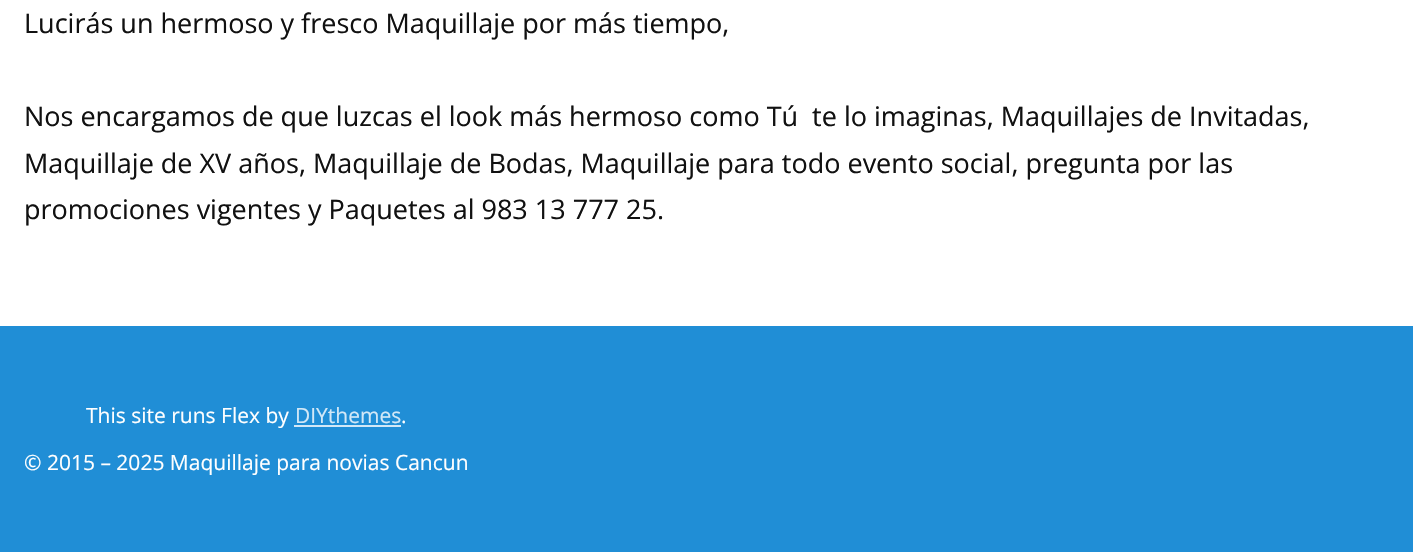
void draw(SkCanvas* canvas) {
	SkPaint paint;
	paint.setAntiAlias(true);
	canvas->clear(0xffffffff);
	SkFont f1(fontMgr->matchFamilyStyle("Open Sans", SkFontStyle::Normal()), 27);
	f1.setSubpixel(true);
	paint.setColor(0xff111111);
	canvas->drawString("Lucirás un hermoso y fresco Maquillaje por más tiempo,", 24, 33, f1, paint);
	canvas->drawString("Nos encargamos de que luzcas el look más hermoso como Tú  te lo imaginas, Maquillajes de Invitadas,", 24, 126, f1, paint);
	canvas->drawString("Maquillaje de XV años, Maquillaje de Bodas, Maquillaje para todo evento social, pregunta por las", 24, 173, f1, paint);
	canvas->drawString("promociones vigentes y Paquetes al 983 13 777 25.", 24, 219, f1, paint);
	paint.setColor(0xff208ed6);
	canvas->drawRect(SkRect::MakeXYWH(0, 326, 1413, 226), paint);
	SkFont f2(fontMgr->matchFamilyStyle("Open Sans", SkFontStyle::Normal()), 21);
	f2.setSubpixel(true);
	paint.setColor(0xffffffff);
	canvas->drawString("This site runs Flex by", 86, 423, f2, paint);
	paint.setColor(0xffd2e8f7);
	canvas->drawString("DIYthemes", 295, 423, f2, paint);
	canvas->drawRect(SkRect::MakeXYWH(294, 425, 107, 2), paint);
	paint.setColor(0xffffffff);
	canvas->drawString(".", 401, 423, f2, paint);
	canvas->drawString("© 2015 – 2025 Maquillaje para novias Cancun", 24, 470, f2, paint);
}
